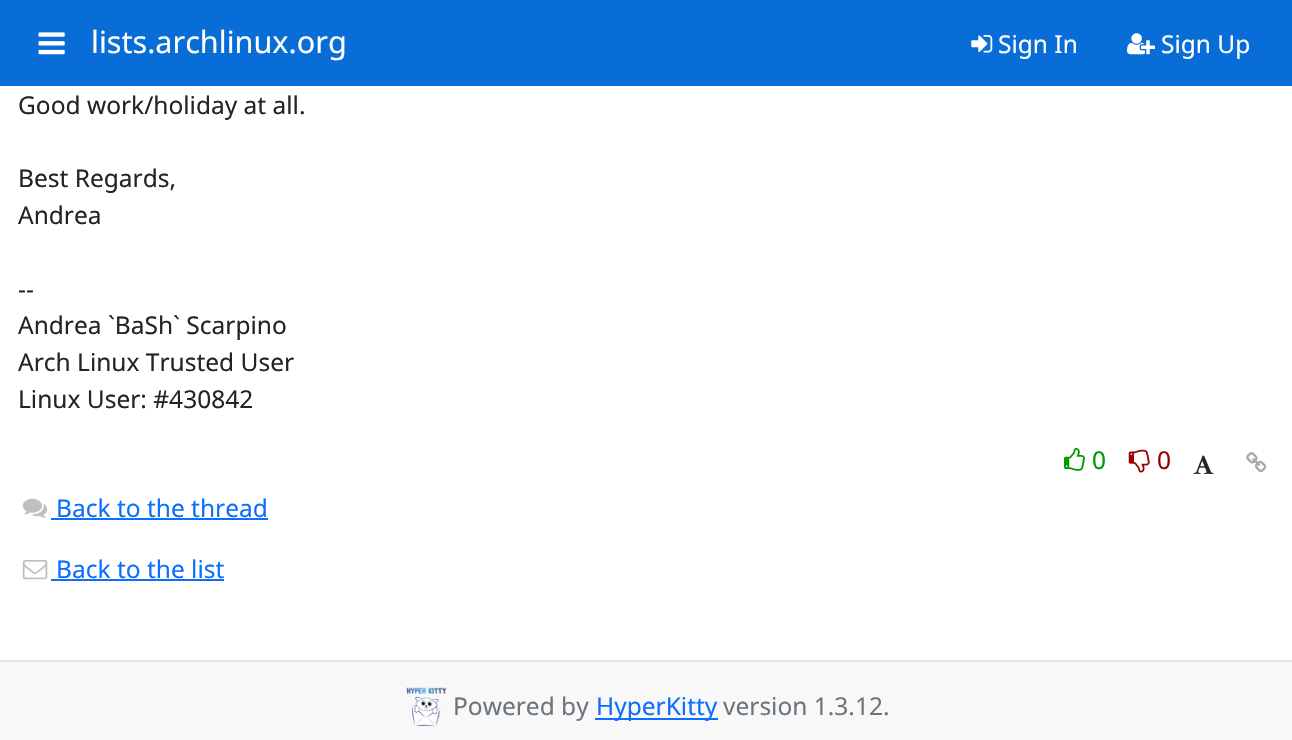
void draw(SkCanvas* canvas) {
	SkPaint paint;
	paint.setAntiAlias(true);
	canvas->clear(0xffffffff);
	paint.setColor(0xff086dd7);
	canvas->drawRect(SkRect::MakeXYWH(0, 0, 1292, 86), paint);
	canvas->drawImageRect(SkImages::DeferredFromEncodedData(SkData::MakeFromFileName("img1.png")), SkRect::MakeXYWH(38, 32, 27, 23), SkSamplingOptions());
	SkFont f1(fontMgr->matchFamilyStyle("Noto Sans", SkFontStyle::Normal()), 30.6);
	f1.setSubpixel(true);
	paint.setColor(0xffffffff);
	canvas->drawString("lists.archlinux.org", 91, 53, f1, paint);
	canvas->drawImageRect(SkImages::DeferredFromEncodedData(SkData::MakeFromFileName("img2.png")), SkRect::MakeXYWH(971, 35, 22, 18), SkSamplingOptions());
	SkFont f2(fontMgr->matchFamilyStyle("Noto Sans", SkFontStyle::Normal()), 24.5);
	f2.setSubpixel(true);
	canvas->drawString("Sign In", 998, 53, f2, paint);
	canvas->drawImageRect(SkImages::DeferredFromEncodedData(SkData::MakeFromFileName("img3.png")), SkRect::MakeXYWH(1127, 33, 28, 22), SkSamplingOptions());
	canvas->drawString("Sign Up", 1161, 53, f2, paint);
	paint.setColor(0xff212529);
	canvas->drawString("Good work/holiday at all.", 18, 114, f2, paint);
	canvas->drawString("Best Regards,", 18, 187, f2, paint);
	canvas->drawString("Andrea", 18, 224, f2, paint);
	canvas->drawString("--", 18, 298, f2, paint);
	canvas->drawString("Andrea `BaSh` Scarpino", 18, 334, f2, paint);
	canvas->drawString("Arch Linux Trusted User", 18, 371, f2, paint);
	canvas->drawString("Linux User: #430842", 18, 408, f2, paint);
	canvas->drawImageRect(SkImages::DeferredFromEncodedData(SkData::MakeFromFileName("img4.png")), SkRect::MakeXYWH(1064, 448, 21, 23), SkSamplingOptions());
	paint.setColor(0xff009900);
	canvas->drawString("0", 1092, 469, f2, paint);
	canvas->drawImageRect(SkImages::DeferredFromEncodedData(SkData::MakeFromFileName("img5.png")), SkRect::MakeXYWH(1128, 449, 22, 24), SkSamplingOptions());
	paint.setColor(0xff990000);
	canvas->drawString("0", 1157, 469, f2, paint);
	canvas->drawImageRect(SkImages::DeferredFromEncodedData(SkData::MakeFromFileName("img6.png")), SkRect::MakeXYWH(1193, 455, 21, 19), SkSamplingOptions());
	canvas->drawImageRect(SkImages::DeferredFromEncodedData(SkData::MakeFromFileName("img7.png")), SkRect::MakeXYWH(1246, 452, 21, 21), SkSamplingOptions());
	canvas->drawImageRect(SkImages::DeferredFromEncodedData(SkData::MakeFromFileName("img8.png")), SkRect::MakeXYWH(22, 498, 26, 20), SkSamplingOptions());
	paint.setColor(0xff0d6efd);
	canvas->drawString("Back to the thread", 56, 517, f2, paint);
	canvas->drawRect(SkRect::MakeXYWH(51, 518, 217, 2), paint);
	canvas->drawImageRect(SkImages::DeferredFromEncodedData(SkData::MakeFromFileName("img9.png")), SkRect::MakeXYWH(22, 560, 26, 20), SkSamplingOptions());
	canvas->drawString("Back to the list", 56, 578, f2, paint);
	canvas->drawRect(SkRect::MakeXYWH(51, 579, 173, 2), paint);
	paint.setColor(0xfff8f8f8);
	canvas->drawRect(SkRect::MakeXYWH(0, 662, 1292, 78), paint);
	paint.setColor(0xffe7e7e7);
	canvas->drawRect(SkRect::MakeXYWH(0, 660, 1292, 2), paint);
	canvas->drawImageRect(SkImages::DeferredFromEncodedData(SkData::MakeFromFileName("img10.png")), SkRect::MakeXYWH(406, 687, 41, 40), SkSamplingOptions());
	paint.setColor(0xff6c757d);
	canvas->drawString("Powered by", 453, 715, f2, paint);
	paint.setColor(0xff0d6efd);
	canvas->drawRect(SkRect::MakeXYWH(595, 718, 123, 2), paint);
	canvas->drawString("HyperKitty", 596, 715, f2, paint);
	paint.setColor(0xff6c757d);
	canvas->drawString("version 1.3.12.", 723, 715, f2, paint);
}
